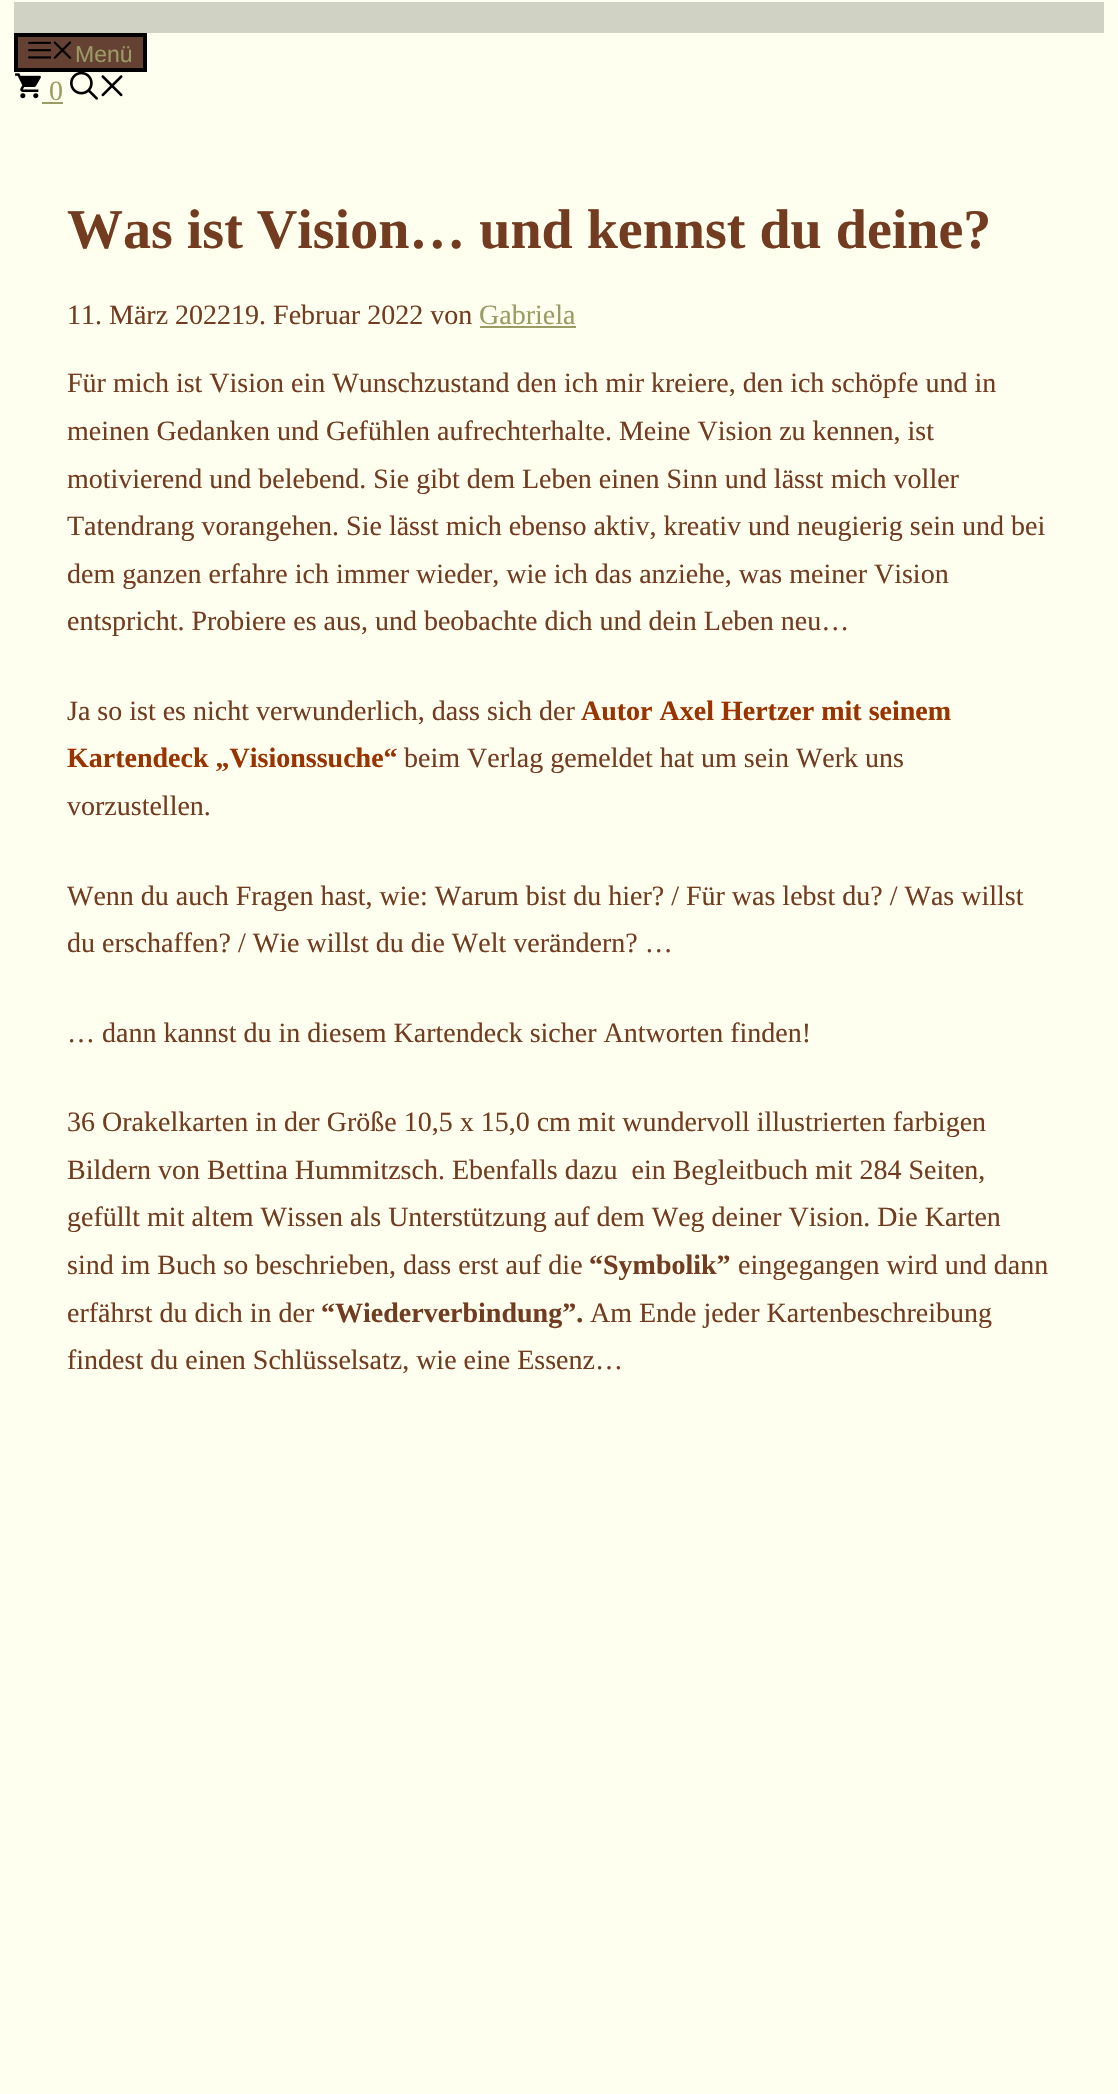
void draw(SkCanvas* canvas) {
	SkPaint paint;
	paint.setAntiAlias(true);
	canvas->clear(0xfffeffef);
	paint.setColor(0xffd0d2c4);
	canvas->drawRect(SkRect::MakeXYWH(14, 2, 1090, 31), paint);
	paint.setColor(0xff644132);
	canvas->drawRect(SkRect::MakeXYWH(16, 35, 129, 35), paint);
	paint.setStroke(true);
	paint.setStrokeWidth(4);
	paint.setColor(0xff000000);
	canvas->drawRect(SkRect::MakeXYWH(16, 35, 129, 35), paint);
	canvas->drawImageRect(SkImages::DeferredFromEncodedData(SkData::MakeFromFileName("img1.png")), SkRect::MakeXYWH(28, 41, 23, 18), SkSamplingOptions());
	canvas->drawImageRect(SkImages::DeferredFromEncodedData(SkData::MakeFromFileName("img2.png")), SkRect::MakeXYWH(53, 41, 19, 18), SkSamplingOptions());
	SkFont f1(fontMgr->matchFamilyStyle("Liberation Sans", SkFontStyle::Normal()), 23);
	f1.setSubpixel(true);
	paint.setStroke(false);
	paint.setColor(0xff9b9b64);
	canvas->drawString("Menü", 75, 62, f1, paint);
	canvas->drawImageRect(SkImages::DeferredFromEncodedData(SkData::MakeFromFileName("img3.png")), SkRect::MakeXYWH(15, 73, 26, 26), SkSamplingOptions());
	SkFont f2(fontMgr->matchFamilyStyle("Liberation Serif", SkFontStyle::Normal()), 28);
	f2.setSubpixel(true);
	canvas->drawString("0", 49, 100, f2, paint);
	canvas->drawRect(SkRect::MakeXYWH(42, 102, 21, 2), paint);
	canvas->drawImageRect(SkImages::DeferredFromEncodedData(SkData::MakeFromFileName("img4.png")), SkRect::MakeXYWH(70, 72, 28, 28), SkSamplingOptions());
	canvas->drawImageRect(SkImages::DeferredFromEncodedData(SkData::MakeFromFileName("img5.png")), SkRect::MakeXYWH(101, 75, 22, 22), SkSamplingOptions());
	SkFont f3(fontMgr->matchFamilyStyle("Liberation Serif", SkFontStyle::Bold()), 56);
	f3.setSubpixel(true);
	paint.setColor(0xff733c20);
	canvas->drawString("Was ist Vision… und kennst du deine?", 67, 248, f3, paint);
	canvas->drawString("11. März 202219. Februar 2022 von", 67, 324, f2, paint);
	paint.setColor(0xff9b9b64);
	canvas->drawString("Gabriela", 479, 324, f2, paint);
	canvas->drawRect(SkRect::MakeXYWH(480, 326, 96, 2), paint);
	paint.setColor(0xff733c20);
	canvas->drawString("Für mich ist Vision ein Wunschzustand den ich mir kreiere, den ich schöpfe und in", 67, 392, f2, paint);
	canvas->drawString("meinen Gedanken und Gefühlen aufrechterhalte. Meine Vision zu kennen, ist", 67, 440, f2, paint);
	canvas->drawString("motivierend und belebend. Sie gibt dem Leben einen Sinn und lässt mich voller", 67, 488, f2, paint);
	canvas->drawString("Tatendrang vorangehen. Sie lässt mich ebenso aktiv, kreativ und neugierig sein und bei", 67, 535, f2, paint);
	canvas->drawString("dem ganzen erfahre ich immer wieder, wie ich das anziehe, was meiner Vision", 67, 583, f2, paint);
	canvas->drawString("entspricht. Probiere es aus, und beobachte dich und dein Leben neu…", 67, 630, f2, paint);
	canvas->drawString("Ja so ist es nicht verwunderlich, dass sich der", 67, 720, f2, paint);
	SkFont f4(fontMgr->matchFamilyStyle("Liberation Serif", SkFontStyle::Bold()), 28);
	f4.setSubpixel(true);
	paint.setColor(0xff993300);
	canvas->drawString("Autor Axel Hertzer mit seinem", 581, 720, f4, paint);
	canvas->drawString("Kartendeck „Visionssuche“", 67, 767, f4, paint);
	paint.setColor(0xff733c20);
	canvas->drawString("beim Verlag gemeldet hat um sein Werk uns", 404, 767, f2, paint);
	canvas->drawString("vorzustellen.", 67, 815, f2, paint);
	canvas->drawString("Wenn du auch Fragen hast, wie: Warum bist du hier? / Für was lebst du? / Was willst", 67, 905, f2, paint);
	canvas->drawString("du erschaffen? / Wie willst du die Welt verändern? …", 67, 952, f2, paint);
	canvas->drawString("… dann kannst du in diesem Kartendeck sicher Antworten finden!", 67, 1042, f2, paint);
	canvas->drawString("36 Orakelkarten in der Größe 10,5 x 15,0 cm mit wundervoll illustrierten farbigen", 67, 1131, f2, paint);
	canvas->drawString("Bildern von Bettina Hummitzsch. Ebenfalls dazu  ein Begleitbuch mit 284 Seiten,", 67, 1179, f2, paint);
	canvas->drawString("gefüllt mit altem Wissen als Unterstützung auf dem Weg deiner Vision. Die Karten", 67, 1226, f2, paint);
	canvas->drawString("sind im Buch so beschrieben, dass erst auf die", 67, 1274, f2, paint);
	canvas->drawString("“Symbolik”", 589, 1274, f4, paint);
	canvas->drawString("eingegangen wird und dann", 738, 1274, f2, paint);
	canvas->drawString("erfährst du dich in der", 67, 1322, f2, paint);
	canvas->drawString("“Wiederverbindung”.", 321, 1322, f4, paint);
	canvas->drawString("Am Ende jeder Kartenbeschreibung", 590, 1322, f2, paint);
	canvas->drawString("findest du einen Schlüsselsatz, wie eine Essenz…", 67, 1369, f2, paint);
}
